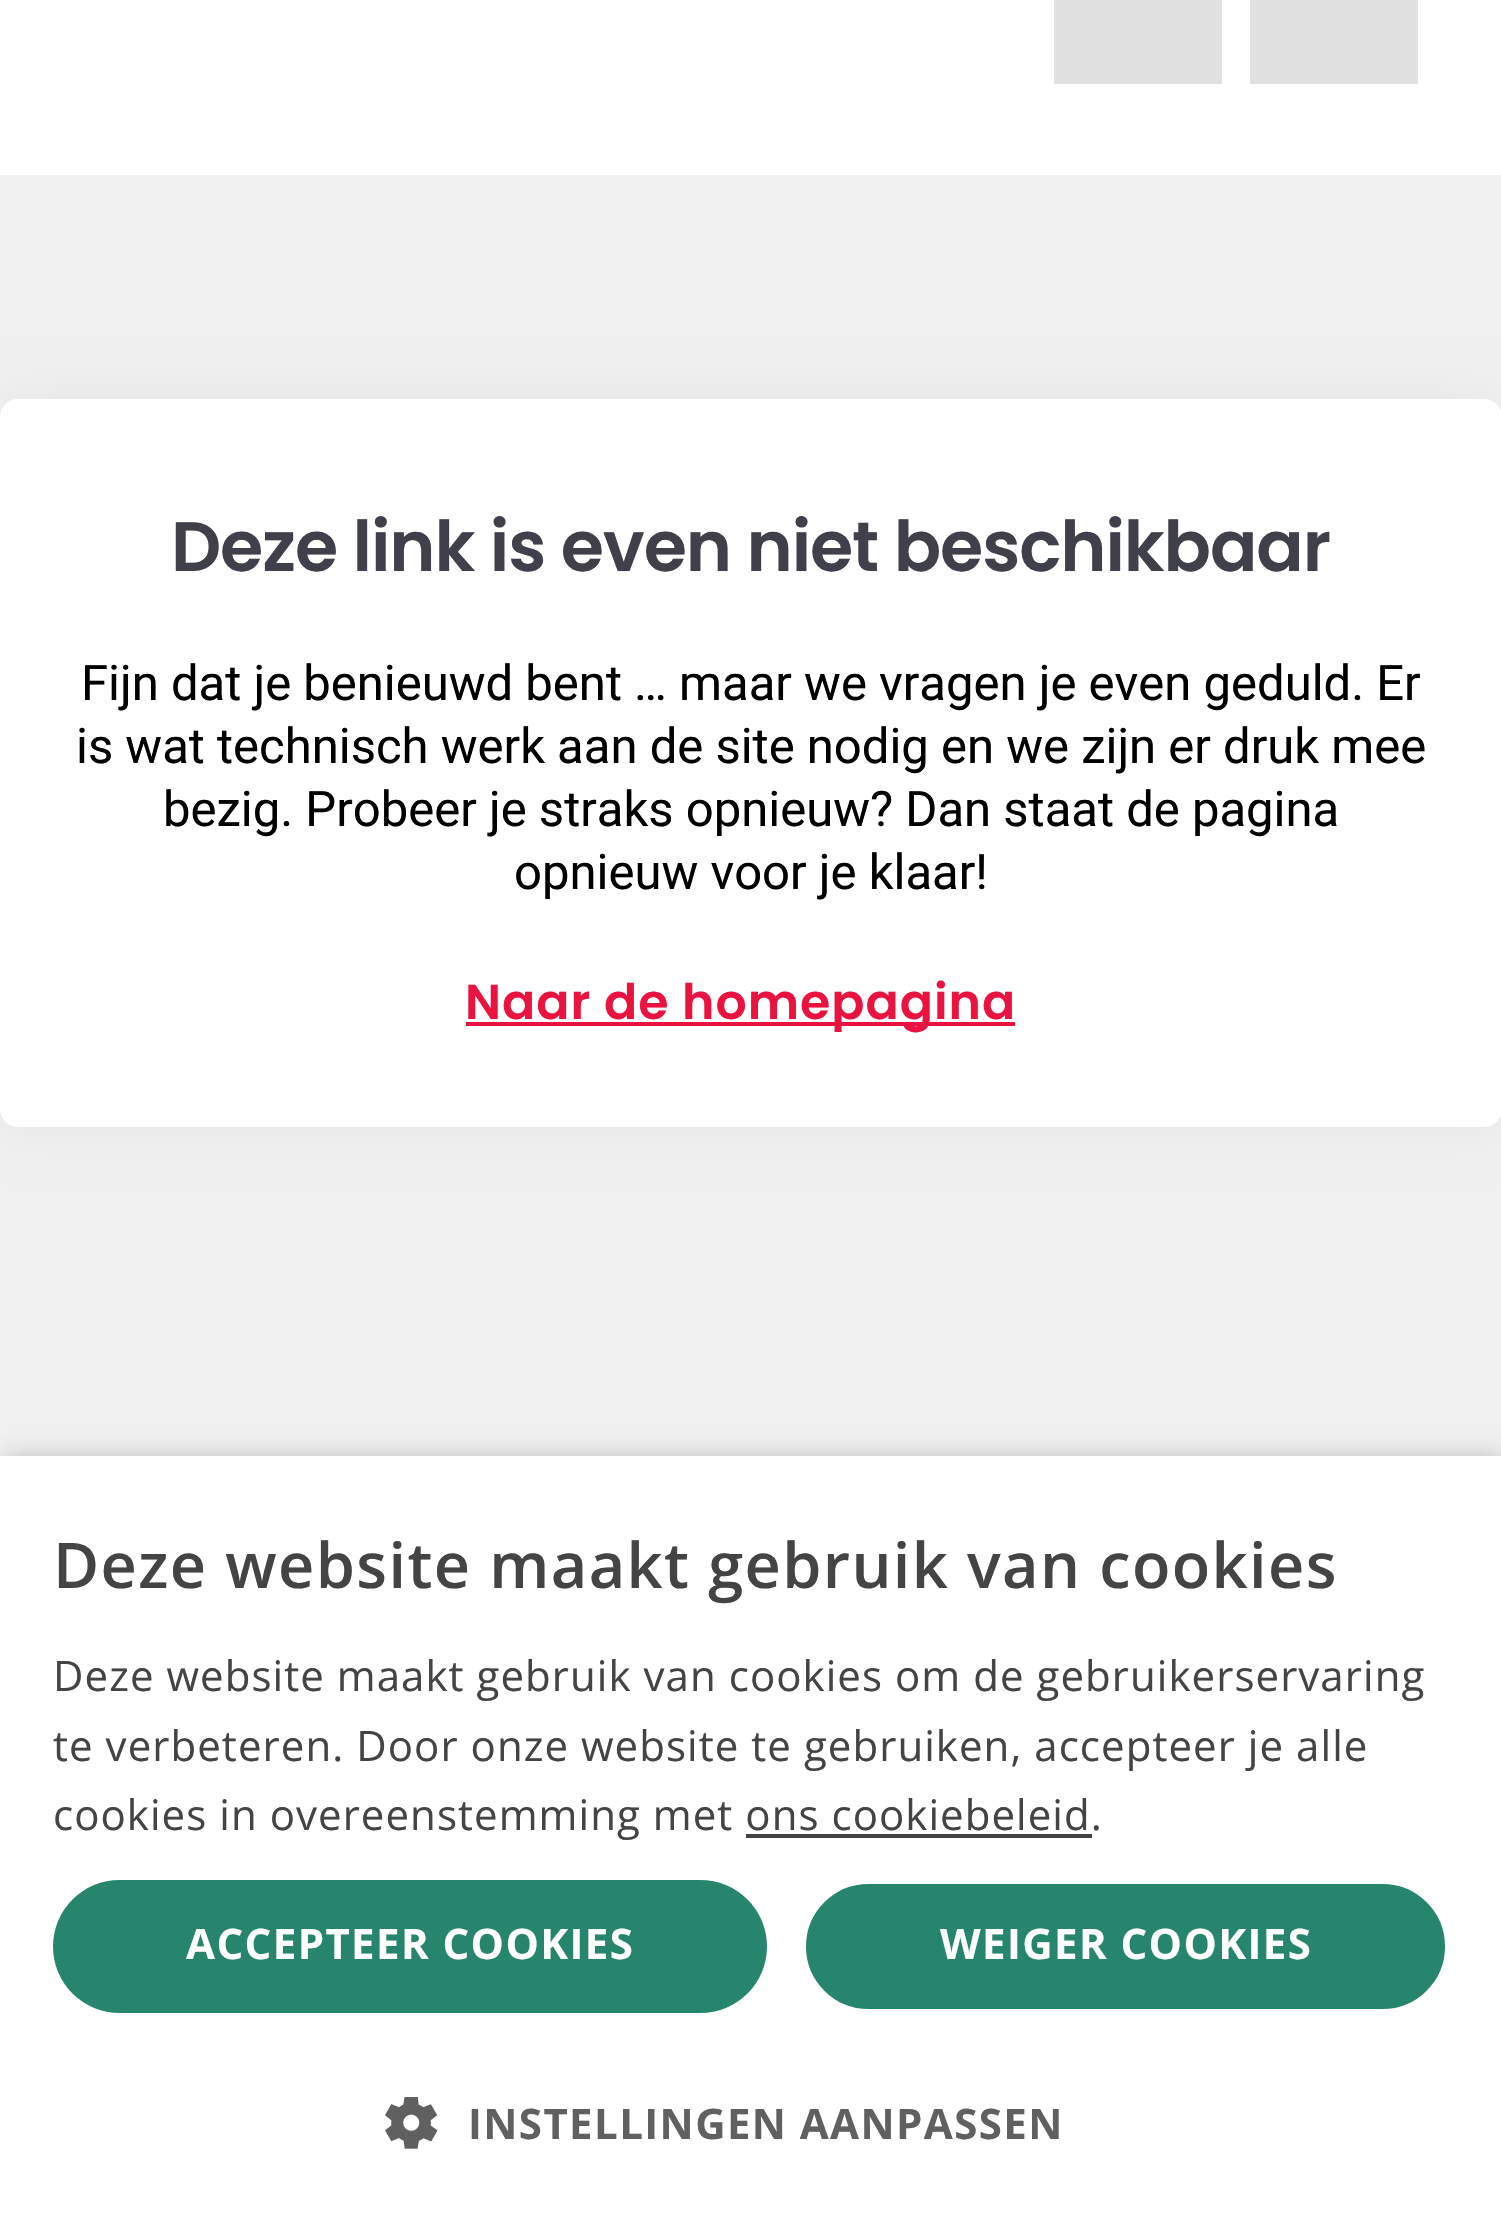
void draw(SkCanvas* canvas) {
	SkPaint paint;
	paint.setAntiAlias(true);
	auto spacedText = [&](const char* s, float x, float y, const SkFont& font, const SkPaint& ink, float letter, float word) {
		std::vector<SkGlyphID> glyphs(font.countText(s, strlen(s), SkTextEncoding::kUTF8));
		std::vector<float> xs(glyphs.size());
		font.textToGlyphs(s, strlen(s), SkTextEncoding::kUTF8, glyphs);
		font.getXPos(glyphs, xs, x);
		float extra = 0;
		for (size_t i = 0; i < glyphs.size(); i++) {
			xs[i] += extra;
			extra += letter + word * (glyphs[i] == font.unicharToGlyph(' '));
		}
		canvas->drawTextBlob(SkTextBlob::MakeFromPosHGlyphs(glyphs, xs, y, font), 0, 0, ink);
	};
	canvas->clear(0xfff1f1f1);
	paint.setColor(0xffffffff);
	canvas->drawRect(SkRect::MakeXYWH(0, 0, 1501, 175), paint);
	paint.setColor(0xffe1e1e1);
	canvas->drawRect(SkRect::MakeXYWH(1054, 0, 168, 84), paint);
	canvas->drawRect(SkRect::MakeXYWH(1250, 0, 168, 84), paint);
	paint.setColor(0x0d000000);
	paint.setMaskFilter(SkMaskFilter::MakeBlur(kNormal_SkBlurStyle, 28));
	canvas->drawRoundRect(SkRect::MakeXYWH(0, 399, 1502, 728), 18, 18, paint);
	paint.setMaskFilter(nullptr);
	paint.setColor(0xffffffff);
	canvas->drawRoundRect(SkRect::MakeXYWH(0, 399, 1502, 728), 18, 18, paint);
	SkFont f1(fontMgr->matchFamilyStyle("Poppins", SkFontStyle(600, SkFontStyle::kNormal_Width, SkFontStyle::kUpright_Slant)), 70);
	f1.setSubpixel(true);
	paint.setColor(0xff40404a);
	spacedText("Deze link is even niet beschikbaar", 171, 571, f1, paint, -1.1, 0);
	SkFont f2(fontMgr->matchFamilyStyle("Roboto", SkFontStyle::Normal()), 49);
	f2.setSubpixel(true);
	paint.setColor(0xff000000);
	canvas->drawString("Fijn dat je benieuwd bent … maar we vragen je even geduld. Er", 81, 700, f2, paint);
	canvas->drawString("is wat technisch werk aan de site nodig en we zijn er druk mee", 76, 763, f2, paint);
	canvas->drawString("bezig. Probeer je straks opnieuw? Dan staat de pagina", 163, 826, f2, paint);
	canvas->drawString("opnieuw voor je klaar!", 514, 889, f2, paint);
	paint.setColor(0xffea1340);
	canvas->drawRect(SkRect::MakeXYWH(466, 1022, 549, 4), paint);
	SkFont f3(fontMgr->matchFamilyStyle("Poppins", SkFontStyle(600, SkFontStyle::kNormal_Width, SkFontStyle::kUpright_Slant)), 49);
	f3.setSubpixel(true);
	spacedText("Naar de homepagina", 465, 1019, f3, paint, 1, 0);
	paint.setColor(0x59000000);
	paint.setMaskFilter(SkMaskFilter::MakeBlur(kNormal_SkBlurStyle, 14));
	canvas->drawRect(SkRect::MakeXYWH(4, 1463, 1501, 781), paint);
	paint.setMaskFilter(nullptr);
	paint.setColor(0xffffffff);
	canvas->drawRect(SkRect::MakeXYWH(0, 1456, 1501, 779), paint);
	SkFont f4(fontMgr->matchFamilyStyle("Open Sans", SkFontStyle(600, SkFontStyle::kNormal_Width, SkFontStyle::kUpright_Slant)), 63);
	f4.setSubpixel(true);
	paint.setColor(0xff444444);
	spacedText("Deze website maakt gebruik van cookies", 53, 1588, f4, paint, 1.4, 0);
	SkFont f5(fontMgr->matchFamilyStyle("Open Sans", SkFontStyle::Normal()), 42);
	f5.setSubpixel(true);
	spacedText("Deze website maakt gebruik van cookies om de gebruikerservaring", 53, 1691, f5, paint, 1.05, 0);
	spacedText("te verbeteren. Door onze website te gebruiken, accepteer je alle", 53, 1761, f5, paint, 1.05, 0);
	spacedText("cookies in overeenstemming met ons cookiebeleid.", 53, 1830, f5, paint, 1.05, 0);
	canvas->drawRect(SkRect::MakeXYWH(746, 1834, 346, 4), paint);
	paint.setColor(0xff27856e);
	canvas->drawRoundRect(SkRect::MakeXYWH(53, 1880, 714, 133), 66.5, 66.5, paint);
	SkFont f6(fontMgr->matchFamilyStyle("Open Sans", SkFontStyle::Bold()), 42);
	f6.setSubpixel(true);
	paint.setColor(0xffffffff);
	spacedText("ACCEPTEER COOKIES", 186, 1959, f6, paint, 1.4, 0);
	paint.setColor(0xff27856e);
	canvas->drawRoundRect(SkRect::MakeXYWH(804, 1882, 643, 129), 64.5, 64.5, paint);
	paint.setStroke(true);
	paint.setStrokeWidth(4);
	paint.setColor(0xffffffff);
	canvas->drawRoundRect(SkRect::MakeXYWH(804, 1882, 643, 129), 64.5, 64.5, paint);
	paint.setStroke(false);
	spacedText("WEIGER COOKIES", 940, 1959, f6, paint, 1.4, 0);
	canvas->drawImageRect(SkImages::DeferredFromEncodedData(SkData::MakeFromFileName("img1.png")), SkRect::MakeXYWH(385, 2097, 53, 52), SkSamplingOptions());
	paint.setColor(0xff606060);
	spacedText("INSTELLINGEN AANPASSEN", 468, 2139, f6, paint, 1.4, 0);
}
